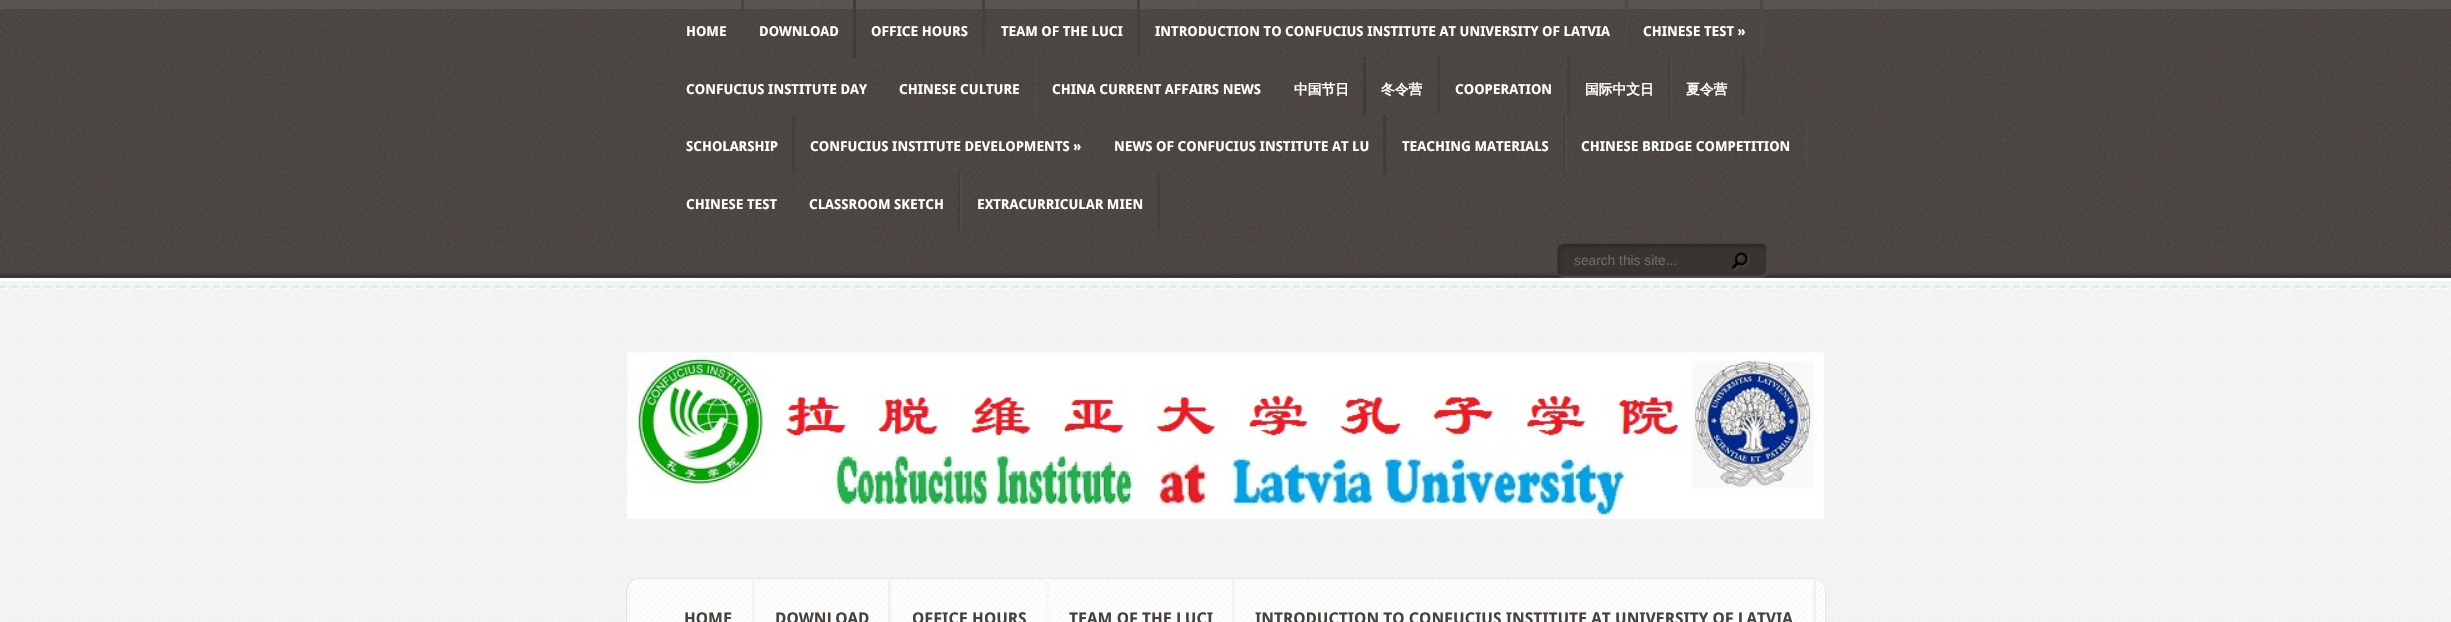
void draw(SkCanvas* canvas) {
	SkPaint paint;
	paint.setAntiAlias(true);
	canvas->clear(0xffffffff);
	canvas->drawImageRect(SkImages::DeferredFromEncodedData(SkData::MakeFromFileName("img1.png")), SkRect::MakeXYWH(0, 0, 2451, 278), SkSamplingOptions());
	paint.setColor(0x14ffffff);
	canvas->drawRect(SkRect::MakeXYWH(0, 0, 2451, 9), paint);
	paint.setColor(0xff4a4542);
	canvas->drawRect(SkRect::MakeXYWH(741, 0, 3, 58), paint);
	SkFont f1(fontMgr->matchFamilyStyle("Droid Sans", SkFontStyle::Bold()), 13.75);
	f1.setSubpixel(true);
	paint.setColor(0xffffffff);
	canvas->drawString("HOME", 686, 36, f1, paint);
	paint.setColor(0xff3f3c39);
	canvas->drawRect(SkRect::MakeXYWH(853, 0, 3, 58), paint);
	paint.setColor(0xffffffff);
	canvas->drawString("DOWNLOAD", 759, 36, f1, paint);
	paint.setColor(0xff44403d);
	canvas->drawRect(SkRect::MakeXYWH(982, 0, 3, 58), paint);
	paint.setColor(0xffffffff);
	canvas->drawString("OFFICE HOURS", 871, 36, f1, paint);
	paint.setColor(0xff44403d);
	canvas->drawRect(SkRect::MakeXYWH(1137, 0, 3, 58), paint);
	paint.setColor(0xffffffff);
	canvas->drawString("TEAM OF THE LUCI", 1001, 36, f1, paint);
	paint.setColor(0xff4e4946);
	canvas->drawRect(SkRect::MakeXYWH(1625, 0, 3, 58), paint);
	paint.setColor(0xffffffff);
	canvas->drawString("INTRODUCTION TO CONFUCIUS INSTITUTE AT UNIVERSITY OF LATVIA", 1155, 36, f1, paint);
	paint.setColor(0xff4e4946);
	canvas->drawRect(SkRect::MakeXYWH(1760, 0, 3, 58), paint);
	paint.setColor(0xffffffff);
	canvas->drawString("CHINESE TEST »", 1643, 36, f1, paint);
	paint.setColor(0xff4a4542);
	canvas->drawRect(SkRect::MakeXYWH(881, 57, 3, 58), paint);
	paint.setColor(0xffffffff);
	canvas->drawString("CONFUCIUS INSTITUTE DAY", 686, 94, f1, paint);
	paint.setColor(0xff4e4946);
	canvas->drawRect(SkRect::MakeXYWH(1035, 57, 3, 58), paint);
	paint.setColor(0xffffffff);
	canvas->drawString("CHINESE CULTURE", 899, 94, f1, paint);
	paint.setColor(0xff4a4542);
	canvas->drawRect(SkRect::MakeXYWH(1276, 57, 3, 58), paint);
	paint.setColor(0xffffffff);
	canvas->drawString("CHINA CURRENT AFFAIRS NEWS", 1052, 94, f1, paint);
	paint.setColor(0xff3f3c39);
	canvas->drawRect(SkRect::MakeXYWH(1363, 57, 3, 58), paint);
	SkFont f2(fontMgr->matchFamilyStyle("WenQuanYi Zen Hei", SkFontStyle::Bold()), 13.75);
	f2.setSubpixel(true);
	paint.setColor(0xffffffff);
	canvas->drawString("中国节日", 1294, 94, f2, paint);
	paint.setColor(0xff44403d);
	canvas->drawRect(SkRect::MakeXYWH(1437, 57, 3, 58), paint);
	paint.setColor(0xffffffff);
	canvas->drawString("冬令营", 1381, 94, f2, paint);
	paint.setColor(0xff44403d);
	canvas->drawRect(SkRect::MakeXYWH(1567, 57, 3, 58), paint);
	paint.setColor(0xffffffff);
	canvas->drawString("COOPERATION", 1455, 94, f1, paint);
	canvas->drawImageRect(SkImages::DeferredFromEncodedData(SkData::MakeFromFileName("img2.png")), SkRect::MakeXYWH(1668, 57, 4, 58), SkSamplingOptions());
	canvas->drawString("国际中文日", 1585, 94, f2, paint);
	paint.setColor(0xff44403d);
	canvas->drawRect(SkRect::MakeXYWH(1742, 57, 3, 58), paint);
	paint.setColor(0xffffffff);
	canvas->drawString("夏令营", 1686, 94, f2, paint);
	paint.setColor(0xff44403d);
	canvas->drawRect(SkRect::MakeXYWH(792, 115, 3, 58), paint);
	paint.setColor(0xffffffff);
	canvas->drawString("SCHOLARSHIP", 686, 151, f1, paint);
	paint.setColor(0xff4a4542);
	canvas->drawRect(SkRect::MakeXYWH(1096, 115, 3, 58), paint);
	paint.setColor(0xffffffff);
	canvas->drawString("CONFUCIUS INSTITUTE DEVELOPMENTS »", 810, 151, f1, paint);
	paint.setColor(0xff3f3c39);
	canvas->drawRect(SkRect::MakeXYWH(1383, 115, 3, 58), paint);
	paint.setColor(0xffffffff);
	canvas->drawString("NEWS OF CONFUCIUS INSTITUTE AT LU", 1114, 151, f1, paint);
	canvas->drawImageRect(SkImages::DeferredFromEncodedData(SkData::MakeFromFileName("img3.png")), SkRect::MakeXYWH(1563, 115, 4, 58), SkSamplingOptions());
	canvas->drawString("TEACHING MATERIALS", 1402, 151, f1, paint);
	paint.setColor(0xff4e4946);
	canvas->drawRect(SkRect::MakeXYWH(1805, 115, 3, 58), paint);
	paint.setColor(0xffffffff);
	canvas->drawString("CHINESE BRIDGE COMPETITION", 1581, 151, f1, paint);
	paint.setColor(0xff4a4542);
	canvas->drawRect(SkRect::MakeXYWH(791, 172, 3, 58), paint);
	paint.setColor(0xffffffff);
	canvas->drawString("CHINESE TEST", 686, 209, f1, paint);
	canvas->drawImageRect(SkImages::DeferredFromEncodedData(SkData::MakeFromFileName("img4.png")), SkRect::MakeXYWH(958, 172, 4, 58), SkSamplingOptions());
	canvas->drawString("CLASSROOM SKETCH", 809, 209, f1, paint);
	paint.setColor(0xff44403d);
	canvas->drawRect(SkRect::MakeXYWH(1157, 172, 3, 58), paint);
	paint.setColor(0xffffffff);
	canvas->drawString("EXTRACURRICULAR MIEN", 977, 209, f1, paint);
	canvas->drawImageRect(SkImages::DeferredFromEncodedData(SkData::MakeFromFileName("img7.png")), SkRect::MakeXYWH(0, 273, 2451, 5), SkSamplingOptions());
	canvas->drawImageRect(SkImages::DeferredFromEncodedData(SkData::MakeFromFileName("img5.png")), SkRect::MakeXYWH(1557, 243, 211, 35), SkSamplingOptions());
	SkFont f3(fontMgr->matchFamilyStyle("Liberation Sans", SkFontStyle::Normal()), 13.75);
	f3.setSubpixel(true);
	paint.setColor(0xff6f6967);
	canvas->drawString("search this site...", 1574, 265, f3, paint);
	canvas->drawImageRect(SkImages::DeferredFromEncodedData(SkData::MakeFromFileName("img6.png")), SkRect::MakeXYWH(1731, 252, 18, 18), SkSamplingOptions());
	paint.setColor(0xfffafcfc);
	canvas->drawRect(SkRect::MakeXYWH(0, 281, 2451, 341), paint);
	canvas->drawImageRect(SkImages::DeferredFromEncodedData(SkData::MakeFromFileName("img8.png")), SkRect::MakeXYWH(0, 281, 2451, 341), SkSamplingOptions());
	canvas->drawImageRect(SkImages::DeferredFromEncodedData(SkData::MakeFromFileName("img9.png")), SkRect::MakeXYWH(0, 286, 2449, 3), SkSamplingOptions());
	canvas->drawImageRect(SkImages::DeferredFromEncodedData(SkData::MakeFromFileName("img10.png")), SkRect::MakeXYWH(627, 352, 1197, 167), SkSamplingOptions());
	paint.setStroke(true);
	paint.setStrokeWidth(1);
	paint.setColor(0xffe2e5e5);
	canvas->drawRoundRect(SkRect::MakeXYWH(626.5, 578.5, 1199, 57), 12.5, 12.5, paint);
	canvas->drawImageRect(SkImages::DeferredFromEncodedData(SkData::MakeFromFileName("img11.png")), SkRect::MakeXYWH(628, 579, 1197, 43), SkSamplingOptions());
	paint.setColor(0xffffffff);
	canvas->drawRoundRect(SkRect::MakeXYWH(628.5, 579.5, 1196, 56), 12.5, 12.5, paint);
	canvas->drawImageRect(SkImages::DeferredFromEncodedData(SkData::MakeFromFileName("img12.png")), SkRect::MakeXYWH(629, 587, 1, 35), SkSamplingOptions());
	canvas->drawImageRect(SkImages::DeferredFromEncodedData(SkData::MakeFromFileName("img13.png")), SkRect::MakeXYWH(635, 580, 1182, 1), SkSamplingOptions());
	paint.setStroke(false);
	paint.setColor(0xfff3f5f5);
	canvas->drawRect(SkRect::MakeXYWH(752, 578, 3, 44), paint);
	SkFont f4(fontMgr->matchFamilyStyle("Droid Sans", SkFontStyle::Bold()), 16.25);
	f4.setSubpixel(true);
	paint.setColor(0xff48423f);
	canvas->drawString("HOME", 684, 624, f4, paint);
	paint.setColor(0xfff0f2f2);
	canvas->drawRect(SkRect::MakeXYWH(888, 578, 3, 44), paint);
	paint.setColor(0xff48423f);
	canvas->drawString("DOWNLOAD", 775, 624, f4, paint);
	paint.setColor(0xfff7f8f8);
	canvas->drawRect(SkRect::MakeXYWH(1046, 578, 3, 44), paint);
	paint.setColor(0xff48423f);
	canvas->drawString("OFFICE HOURS", 912, 624, f4, paint);
	paint.setColor(0xfff3f5f5);
	canvas->drawRect(SkRect::MakeXYWH(1232, 578, 3, 44), paint);
	paint.setColor(0xff48423f);
	canvas->drawString("TEAM OF THE LUCI", 1069, 624, f4, paint);
	paint.setColor(0xfff0f2f2);
	canvas->drawRect(SkRect::MakeXYWH(1813, 578, 3, 44), paint);
	paint.setColor(0xff48423f);
	canvas->drawString("INTRODUCTION TO CONFUCIUS INSTITUTE AT UNIVERSITY OF LATVIA", 1255, 624, f4, paint);
}
